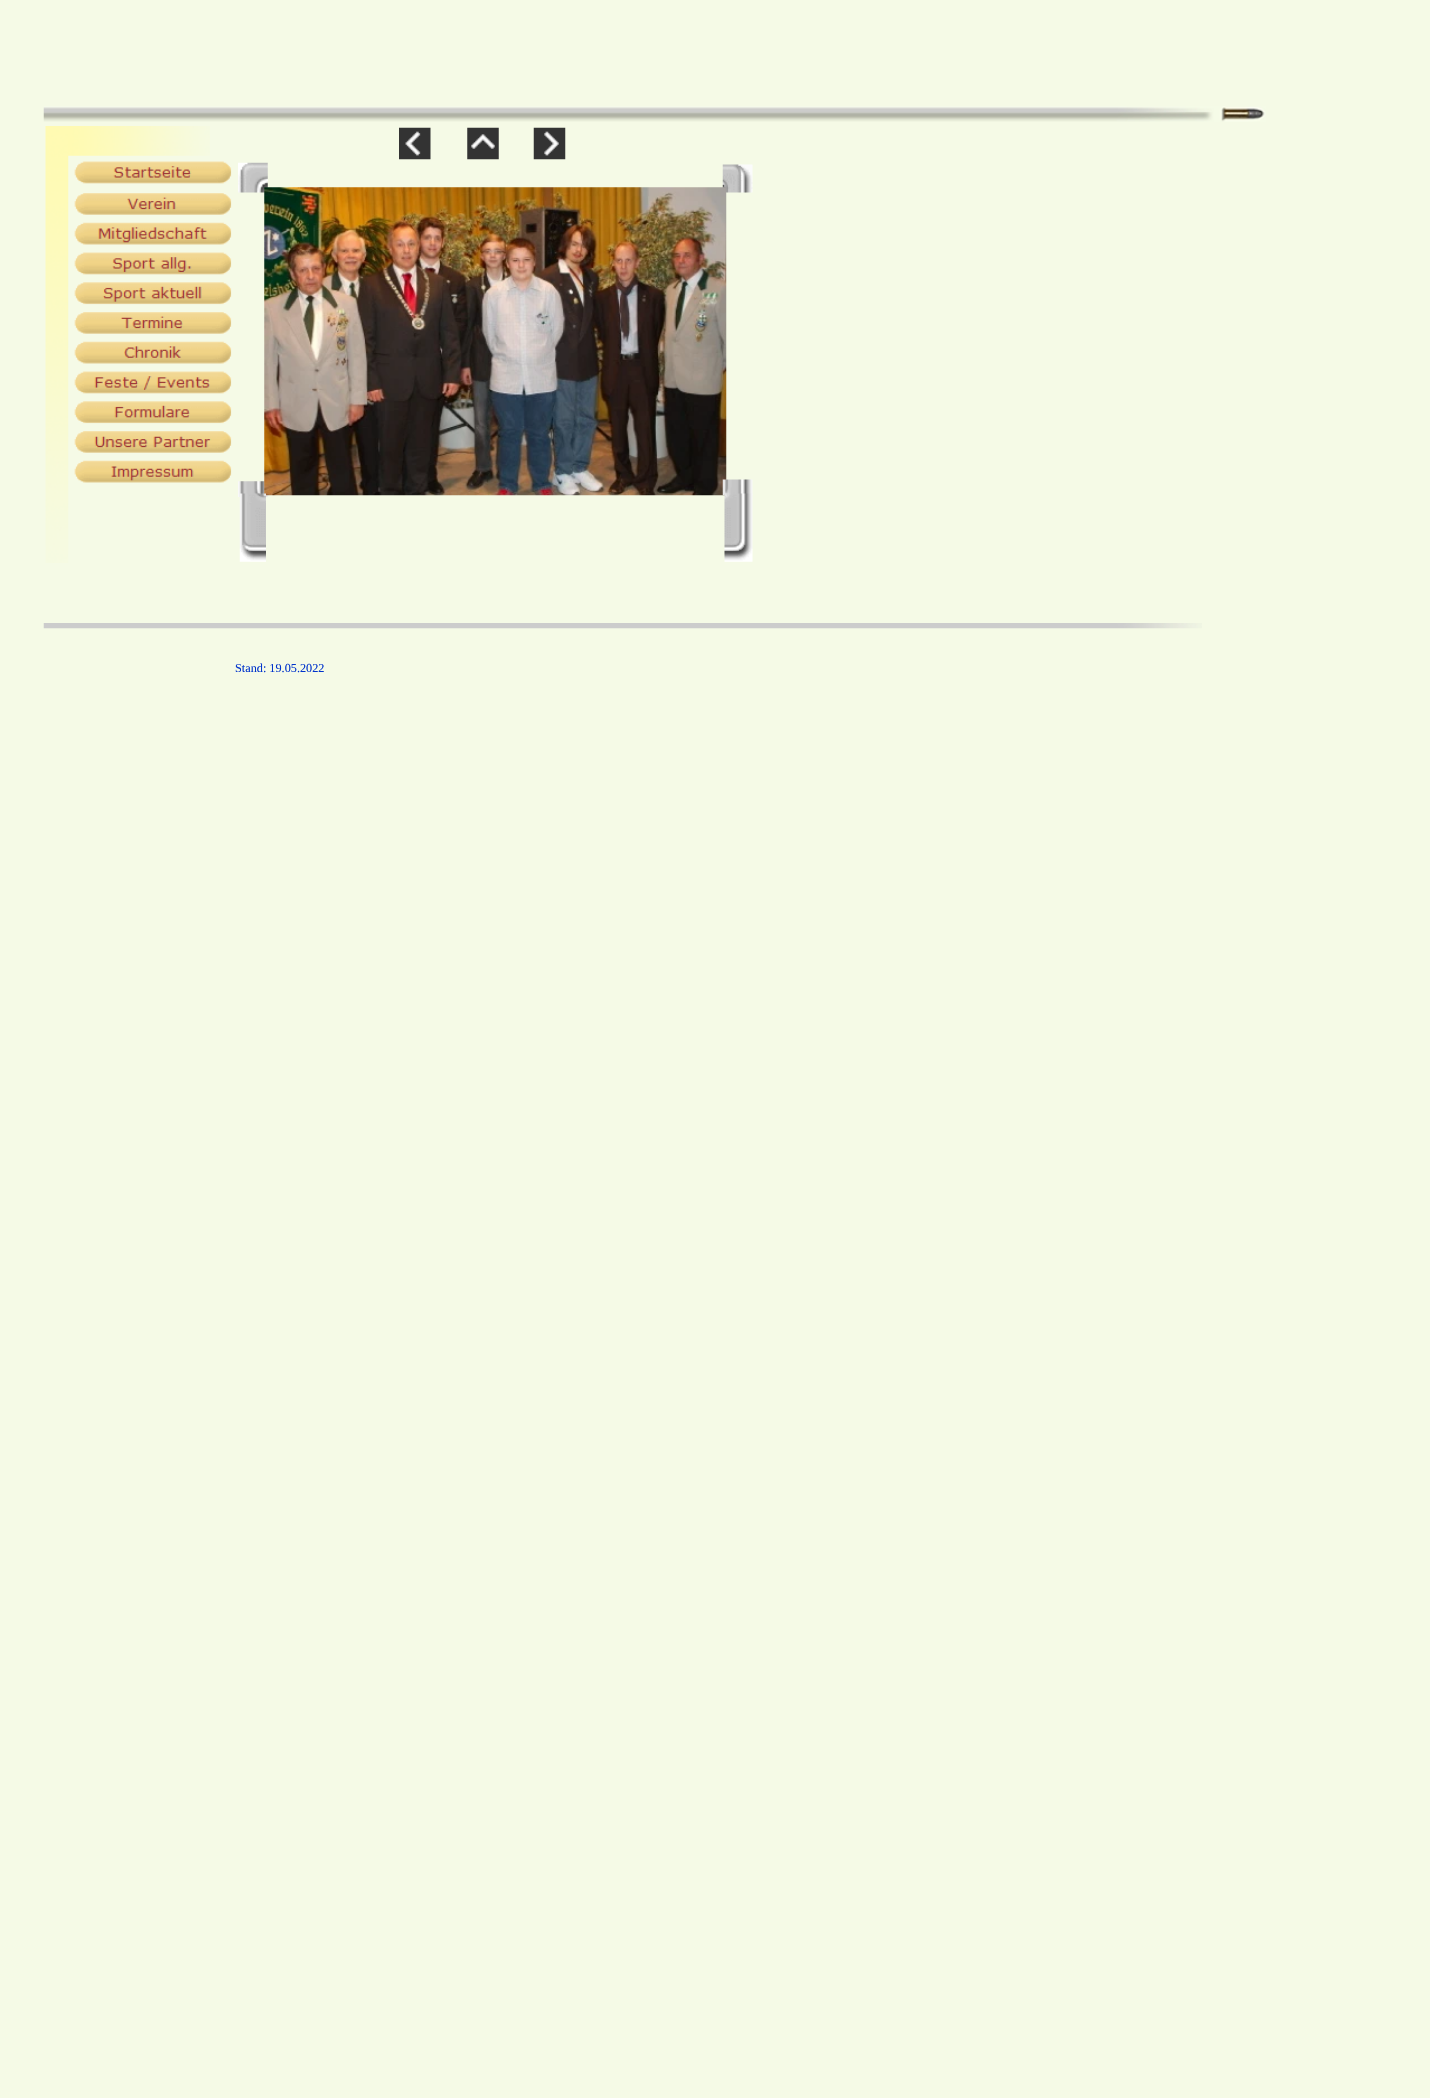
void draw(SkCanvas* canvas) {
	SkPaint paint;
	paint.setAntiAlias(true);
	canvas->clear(0xfff5fae6);
	canvas->drawImageRect(SkImages::DeferredFromEncodedData(SkData::MakeFromFileName("img1.png")), SkRect::MakeXYWH(43, 106, 1223, 16), SkSamplingOptions());
	canvas->drawImageRect(SkImages::DeferredFromEncodedData(SkData::MakeFromFileName("img2.png")), SkRect::MakeXYWH(45, 126, 24, 437), SkSamplingOptions());
	canvas->drawImageRect(SkImages::DeferredFromEncodedData(SkData::MakeFromFileName("img3.png")), SkRect::MakeXYWH(68, 126, 142, 30), SkSamplingOptions());
	canvas->drawImageRect(SkImages::DeferredFromEncodedData(SkData::MakeFromFileName("img4.png")), SkRect::MakeXYWH(399, 127, 32, 33), SkSamplingOptions());
	canvas->drawImageRect(SkImages::DeferredFromEncodedData(SkData::MakeFromFileName("img5.png")), SkRect::MakeXYWH(467, 127, 32, 33), SkSamplingOptions());
	canvas->drawImageRect(SkImages::DeferredFromEncodedData(SkData::MakeFromFileName("img6.png")), SkRect::MakeXYWH(533, 127, 33, 33), SkSamplingOptions());
	canvas->drawImageRect(SkImages::DeferredFromEncodedData(SkData::MakeFromFileName("img7.png")), SkRect::MakeXYWH(74, 161, 158, 23), SkSamplingOptions());
	canvas->drawImageRect(SkImages::DeferredFromEncodedData(SkData::MakeFromFileName("img8.png")), SkRect::MakeXYWH(238, 162, 30, 31), SkSamplingOptions());
	canvas->drawImageRect(SkImages::DeferredFromEncodedData(SkData::MakeFromFileName("img9.png")), SkRect::MakeXYWH(722, 164, 31, 29), SkSamplingOptions());
	canvas->drawImageRect(SkImages::DeferredFromEncodedData(SkData::MakeFromFileName("img10.png")), SkRect::MakeXYWH(74, 193, 158, 22), SkSamplingOptions());
	canvas->drawImageRect(SkImages::DeferredFromEncodedData(SkData::MakeFromFileName("img21.png")), SkRect::MakeXYWH(238, 481, 30, 16), SkSamplingOptions());
	canvas->drawImageRect(SkImages::DeferredFromEncodedData(SkData::MakeFromFileName("img11.png")), SkRect::MakeXYWH(264, 187, 463, 309), SkSamplingOptions());
	canvas->drawImageRect(SkImages::DeferredFromEncodedData(SkData::MakeFromFileName("img12.png")), SkRect::MakeXYWH(74, 222, 158, 23), SkSamplingOptions());
	canvas->drawImageRect(SkImages::DeferredFromEncodedData(SkData::MakeFromFileName("img13.png")), SkRect::MakeXYWH(74, 252, 158, 23), SkSamplingOptions());
	canvas->drawImageRect(SkImages::DeferredFromEncodedData(SkData::MakeFromFileName("img14.png")), SkRect::MakeXYWH(74, 282, 158, 23), SkSamplingOptions());
	canvas->drawImageRect(SkImages::DeferredFromEncodedData(SkData::MakeFromFileName("img15.png")), SkRect::MakeXYWH(74, 312, 158, 22), SkSamplingOptions());
	canvas->drawImageRect(SkImages::DeferredFromEncodedData(SkData::MakeFromFileName("img16.png")), SkRect::MakeXYWH(74, 341, 158, 23), SkSamplingOptions());
	canvas->drawImageRect(SkImages::DeferredFromEncodedData(SkData::MakeFromFileName("img17.png")), SkRect::MakeXYWH(74, 371, 158, 23), SkSamplingOptions());
	canvas->drawImageRect(SkImages::DeferredFromEncodedData(SkData::MakeFromFileName("img18.png")), SkRect::MakeXYWH(74, 401, 158, 23), SkSamplingOptions());
	canvas->drawImageRect(SkImages::DeferredFromEncodedData(SkData::MakeFromFileName("img19.png")), SkRect::MakeXYWH(74, 431, 158, 22), SkSamplingOptions());
	canvas->drawImageRect(SkImages::DeferredFromEncodedData(SkData::MakeFromFileName("img20.png")), SkRect::MakeXYWH(74, 460, 158, 23), SkSamplingOptions());
	canvas->drawImageRect(SkImages::DeferredFromEncodedData(SkData::MakeFromFileName("img22.png")), SkRect::MakeXYWH(722, 479, 31, 17), SkSamplingOptions());
	canvas->drawImageRect(SkImages::DeferredFromEncodedData(SkData::MakeFromFileName("img23.png")), SkRect::MakeXYWH(239, 493, 27, 69), SkSamplingOptions());
	canvas->drawImageRect(SkImages::DeferredFromEncodedData(SkData::MakeFromFileName("img24.png")), SkRect::MakeXYWH(724, 493, 29, 69), SkSamplingOptions());
	canvas->drawImageRect(SkImages::DeferredFromEncodedData(SkData::MakeFromFileName("img25.png")), SkRect::MakeXYWH(43, 623, 1159, 6), SkSamplingOptions());
	SkFont f1(fontMgr->matchFamilyStyle("Liberation Serif", SkFontStyle::Normal()), 12.25);
	f1.setSubpixel(true);
	paint.setColor(0xff0033cc);
	canvas->drawString("Stand: 19.05.2022", 235, 672, f1, paint);
}
